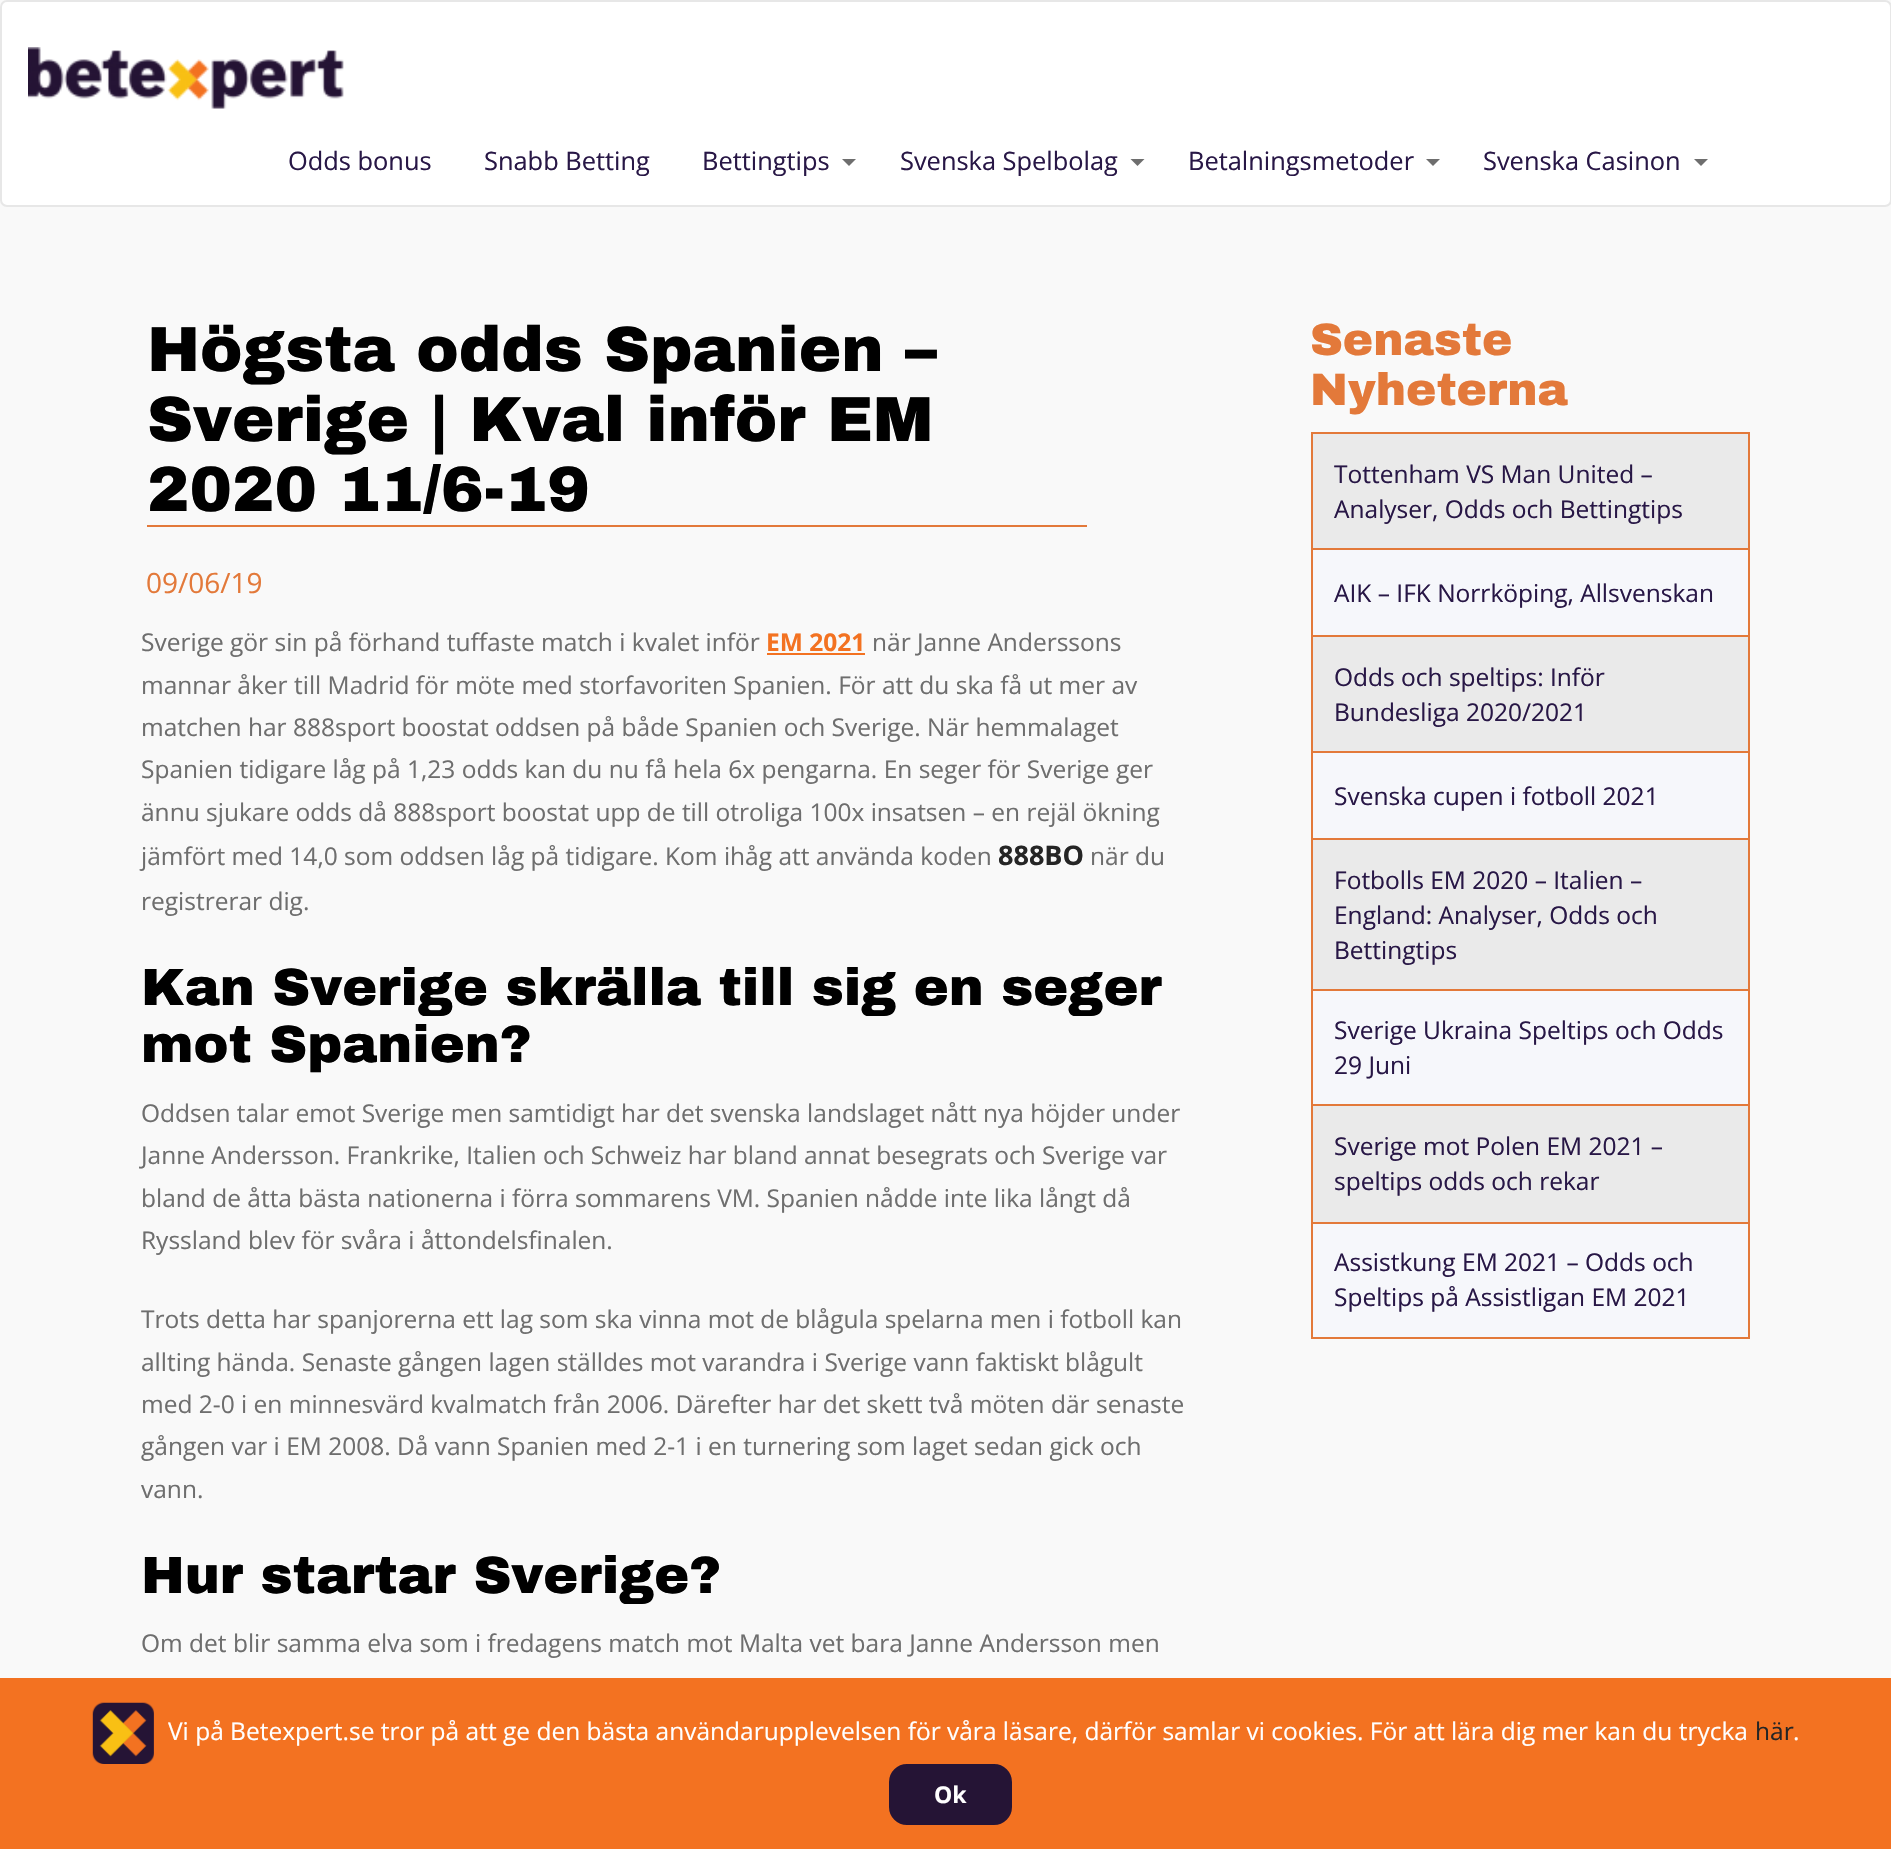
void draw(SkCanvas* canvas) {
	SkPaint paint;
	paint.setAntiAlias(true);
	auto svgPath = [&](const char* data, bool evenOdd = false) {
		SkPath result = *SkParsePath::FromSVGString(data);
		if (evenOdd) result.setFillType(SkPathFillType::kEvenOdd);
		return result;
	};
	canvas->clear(0xfff9f9f9);
	paint.setColor(0xffffffff);
	canvas->drawRoundRect(SkRect::MakeXYWH(1, 1, 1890, 205), 6, 6, paint);
	paint.setStroke(true);
	paint.setStrokeWidth(2);
	paint.setColor(0xffe7e7e7);
	canvas->drawRoundRect(SkRect::MakeXYWH(1, 1, 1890, 205), 6, 6, paint);
	canvas->drawImageRect(SkImages::DeferredFromEncodedData(SkData::MakeFromFileName("img1.png")), SkRect::MakeXYWH(28, 47, 316, 62), SkSamplingOptions());
	SkFont f1(fontMgr->matchFamilyStyle("Open Sans", SkFontStyle::Normal()), 25.4);
	f1.setSubpixel(true);
	paint.setStroke(false);
	paint.setColor(0xff281746);
	canvas->drawString("Odds bonus", 288, 170, f1, paint);
	canvas->drawString("Snabb Betting", 484, 170, f1, paint);
	canvas->drawString("Bettingtips", 702, 170, f1, paint);
	paint.setColor(0xff6e6e6e);
	canvas->drawPath(svgPath("M842 159H856L849 166Z"), paint);
	paint.setColor(0xff281746);
	canvas->drawString("Svenska Spelbolag", 900, 170, f1, paint);
	paint.setColor(0xff6e6e6e);
	canvas->drawPath(svgPath("M1130.5 159H1144.5L1137.5 166Z"), paint);
	paint.setColor(0xff281746);
	canvas->drawString("Betalningsmetoder", 1188, 170, f1, paint);
	paint.setColor(0xff6e6e6e);
	canvas->drawPath(svgPath("M1426 159H1440L1433 166Z"), paint);
	paint.setColor(0xff281746);
	canvas->drawString("Svenska Casinon", 1483, 170, f1, paint);
	paint.setColor(0xff6e6e6e);
	canvas->drawPath(svgPath("M1694 159H1708L1701 166Z"), paint);
	paint.setColor(0xffe3793a);
	canvas->drawRect(SkRect::MakeXYWH(147, 525, 940, 2), paint);
	SkFont f2(fontMgr->matchFamilyStyle("Archivo Black", SkFontStyle(900, SkFontStyle::kNormal_Width, SkFontStyle::kUpright_Slant)), 63.75);
	f2.setSubpixel(true);
	paint.setColor(0xff000000);
	canvas->drawString("Högsta odds Spanien –", 147, 371, f2, paint);
	canvas->drawString("Sverige | Kval inför EM", 147, 441, f2, paint);
	canvas->drawString("2020 11/6-19", 147, 511, f2, paint);
	SkFont f3(fontMgr->matchFamilyStyle("Open Sans", SkFontStyle::Normal()), 28);
	f3.setSubpixel(true);
	paint.setColor(0xffe3793a);
	canvas->drawString("09/06/19", 146, 593, f3, paint);
	SkFont f4(fontMgr->matchFamilyStyle("Open Sans", SkFontStyle::Normal()), 24.5);
	f4.setSubpixel(true);
	paint.setColor(0xff6e6e6e);
	canvas->drawString("Sverige gör sin på förhand tuffaste match i kvalet inför", 141, 651, f4, paint);
	SkFont f5(fontMgr->matchFamilyStyle("Open Sans", SkFontStyle::Bold()), 24.5);
	f5.setSubpixel(true);
	paint.setColor(0xfff37221);
	canvas->drawString("EM 2021", 766, 651, f5, paint);
	canvas->drawRect(SkRect::MakeXYWH(767, 653, 98, 2), paint);
	paint.setColor(0xff6e6e6e);
	canvas->drawString("när Janne Anderssons", 872, 651, f4, paint);
	canvas->drawString("mannar åker till Madrid för möte med storfavoriten Spanien. För att du ska få ut mer av", 141, 694, f4, paint);
	canvas->drawString("matchen har 888sport boostat oddsen på både Spanien och Sverige. När hemmalaget", 141, 736, f4, paint);
	canvas->drawString("Spanien tidigare låg på 1,23 odds kan du nu få hela 6x pengarna. En seger för Sverige ger", 141, 778, f4, paint);
	canvas->drawString("ännu sjukare odds då 888sport boostat upp de till otroliga 100x insatsen – en rejäl ökning", 141, 821, f4, paint);
	canvas->drawString("jämfört med 14,0 som oddsen låg på tidigare. Kom ihåg att använda koden", 141, 865, f4, paint);
	SkFont f6(fontMgr->matchFamilyStyle("Open Sans", SkFontStyle::Bold()), 27);
	f6.setSubpixel(true);
	paint.setColor(0xff252525);
	canvas->drawString("888BO", 998, 865, f6, paint);
	paint.setColor(0xff6e6e6e);
	canvas->drawString("när du", 1090, 865, f4, paint);
	canvas->drawString("registrerar dig.", 141, 910, f4, paint);
	SkFont f7(fontMgr->matchFamilyStyle("Archivo Black", SkFontStyle(900, SkFontStyle::kNormal_Width, SkFontStyle::kUpright_Slant)), 52.5);
	f7.setSubpixel(true);
	paint.setColor(0xff000000);
	canvas->drawString("Kan Sverige skrälla till sig en seger", 141, 1005, f7, paint);
	canvas->drawString("mot Spanien?", 141, 1062, f7, paint);
	paint.setColor(0xff6e6e6e);
	canvas->drawString("Oddsen talar emot Sverige men samtidigt har det svenska landslaget nått nya höjder under", 141, 1122, f4, paint);
	canvas->drawString("Janne Andersson. Frankrike, Italien och Schweiz har bland annat besegrats och Sverige var", 141, 1164, f4, paint);
	canvas->drawString("bland de åtta bästa nationerna i förra sommarens VM. Spanien nådde inte lika långt då", 141, 1207, f4, paint);
	canvas->drawString("Ryssland blev för svåra i åttondelsfinalen.", 141, 1249, f4, paint);
	canvas->drawString("Trots detta har spanjorerna ett lag som ska vinna mot de blågula spelarna men i fotboll kan", 141, 1328, f4, paint);
	canvas->drawString("allting hända. Senaste gången lagen ställdes mot varandra i Sverige vann faktiskt blågult", 141, 1371, f4, paint);
	canvas->drawString("med 2-0 i en minnesvärd kvalmatch från 2006. Därefter har det skett två möten där senaste", 141, 1413, f4, paint);
	canvas->drawString("gången var i EM 2008. Då vann Spanien med 2-1 i en turnering som laget sedan gick och", 141, 1455, f4, paint);
	canvas->drawString("vann.", 141, 1498, f4, paint);
	paint.setColor(0xff000000);
	canvas->drawString("Hur startar Sverige?", 141, 1593, f7, paint);
	paint.setColor(0xff6e6e6e);
	canvas->drawString("Om det blir samma elva som i fredagens match mot Malta vet bara Janne Andersson men", 141, 1652, f4, paint);
	SkFont f8(fontMgr->matchFamilyStyle("Archivo Black", SkFontStyle(900, SkFontStyle::kNormal_Width, SkFontStyle::kUpright_Slant)), 45.5);
	f8.setSubpixel(true);
	paint.setColor(0xffe3793a);
	canvas->drawString("Senaste", 1310, 355, f8, paint);
	canvas->drawString("Nyheterna", 1310, 405, f8, paint);
	paint.setColor(0xffeaeaea);
	canvas->drawRect(SkRect::MakeXYWH(1313, 434, 435, 114), paint);
	paint.setColor(0xffe3793a);
	canvas->drawRect(SkRect::MakeXYWH(1311, 432, 439, 2), paint);
	canvas->drawRect(SkRect::MakeXYWH(1311, 548, 439, 2), paint);
	canvas->drawRect(SkRect::MakeXYWH(1311, 635, 439, 2), paint);
	canvas->drawRect(SkRect::MakeXYWH(1311, 751, 439, 2), paint);
	canvas->drawRect(SkRect::MakeXYWH(1311, 838, 439, 2), paint);
	canvas->drawRect(SkRect::MakeXYWH(1311, 989, 439, 2), paint);
	canvas->drawRect(SkRect::MakeXYWH(1311, 1104, 439, 2), paint);
	canvas->drawRect(SkRect::MakeXYWH(1311, 1222, 439, 2), paint);
	canvas->drawRect(SkRect::MakeXYWH(1748, 1222, 2, 117), paint);
	canvas->drawRect(SkRect::MakeXYWH(1748, 1104, 2, 119), paint);
	canvas->drawRect(SkRect::MakeXYWH(1748, 989, 2, 117), paint);
	canvas->drawRect(SkRect::MakeXYWH(1748, 838, 2, 153), paint);
	canvas->drawRect(SkRect::MakeXYWH(1748, 751, 2, 89), paint);
	canvas->drawRect(SkRect::MakeXYWH(1748, 635, 2, 118), paint);
	canvas->drawRect(SkRect::MakeXYWH(1748, 548, 2, 89), paint);
	canvas->drawRect(SkRect::MakeXYWH(1748, 432, 2, 118), paint);
	canvas->drawRect(SkRect::MakeXYWH(1311, 1337, 439, 2), paint);
	canvas->drawRect(SkRect::MakeXYWH(1311, 1222, 2, 117), paint);
	canvas->drawRect(SkRect::MakeXYWH(1311, 1104, 2, 119), paint);
	canvas->drawRect(SkRect::MakeXYWH(1311, 989, 2, 117), paint);
	canvas->drawRect(SkRect::MakeXYWH(1311, 838, 2, 153), paint);
	canvas->drawRect(SkRect::MakeXYWH(1311, 751, 2, 89), paint);
	canvas->drawRect(SkRect::MakeXYWH(1311, 635, 2, 118), paint);
	canvas->drawRect(SkRect::MakeXYWH(1311, 548, 2, 89), paint);
	canvas->drawRect(SkRect::MakeXYWH(1311, 432, 2, 118), paint);
	paint.setColor(0xff281746);
	canvas->drawString("Tottenham VS Man United –", 1334, 483, f4, paint);
	canvas->drawString("Analyser, Odds och Bettingtips", 1334, 518, f4, paint);
	paint.setColor(0xfff6f7fb);
	canvas->drawRect(SkRect::MakeXYWH(1313, 550, 435, 85), paint);
	paint.setColor(0xff281746);
	canvas->drawString("AIK – IFK Norrköping, Allsvenskan", 1334, 602, f4, paint);
	paint.setColor(0xffeaeaea);
	canvas->drawRect(SkRect::MakeXYWH(1313, 637, 435, 114), paint);
	paint.setColor(0xff281746);
	canvas->drawString("Odds och speltips: Inför", 1334, 686, f4, paint);
	canvas->drawString("Bundesliga 2020/2021", 1334, 721, f4, paint);
	paint.setColor(0xfff6f7fb);
	canvas->drawRect(SkRect::MakeXYWH(1313, 753, 435, 85), paint);
	paint.setColor(0xff281746);
	canvas->drawString("Svenska cupen i fotboll 2021", 1334, 805, f4, paint);
	paint.setColor(0xffeaeaea);
	canvas->drawRect(SkRect::MakeXYWH(1313, 840, 435, 149), paint);
	paint.setColor(0xff281746);
	canvas->drawString("Fotbolls EM 2020 – Italien –", 1334, 889, f4, paint);
	canvas->drawString("England: Analyser, Odds och", 1334, 924, f4, paint);
	canvas->drawString("Bettingtips", 1334, 959, f4, paint);
	paint.setColor(0xfff6f7fb);
	canvas->drawRect(SkRect::MakeXYWH(1313, 991, 435, 113), paint);
	paint.setColor(0xff281746);
	canvas->drawString("Sverige Ukraina Speltips och Odds", 1334, 1039, f4, paint);
	canvas->drawString("29 Juni", 1334, 1074, f4, paint);
	paint.setColor(0xffeaeaea);
	canvas->drawRect(SkRect::MakeXYWH(1313, 1106, 435, 116), paint);
	paint.setColor(0xff281746);
	canvas->drawString("Sverige mot Polen EM 2021 –", 1334, 1155, f4, paint);
	canvas->drawString("speltips odds och rekar", 1334, 1190, f4, paint);
	paint.setColor(0xfff6f7fb);
	canvas->drawRect(SkRect::MakeXYWH(1313, 1224, 435, 113), paint);
	paint.setColor(0xff281746);
	canvas->drawString("Assistkung EM 2021 – Odds och", 1334, 1271, f4, paint);
	canvas->drawString("Speltips på Assistligan EM 2021", 1334, 1306, f4, paint);
	paint.setColor(0xfff37221);
	canvas->drawRect(SkRect::MakeXYWH(0, 1678, 1891, 171), paint);
	canvas->drawImageRect(SkImages::DeferredFromEncodedData(SkData::MakeFromFileName("img2.png")), SkRect::MakeXYWH(92, 1702, 62, 62), SkSamplingOptions());
	paint.setColor(0xffffffff);
	canvas->drawString("Vi på Betexpert.se tror på att ge den bästa användarupplevelsen för våra läsare, därför samlar vi cookies. För att lära dig mer kan du trycka", 168, 1740, f4, paint);
	paint.setColor(0xff252525);
	canvas->drawString("här", 1755, 1740, f4, paint);
	paint.setColor(0xffffffff);
	canvas->drawString(".", 1793, 1740, f4, paint);
	paint.setColor(0xff251435);
	canvas->drawRoundRect(SkRect::MakeXYWH(890, 1765, 121, 59), 17, 17, paint);
	paint.setStroke(true);
	canvas->drawRoundRect(SkRect::MakeXYWH(890, 1765, 121, 59), 17, 17, paint);
	SkFont f9(fontMgr->matchFamilyStyle("Open Sans", SkFontStyle::Bold()), 23);
	f9.setSubpixel(true);
	paint.setStroke(false);
	paint.setColor(0xffffffff);
	canvas->drawString("Ok", 934, 1803, f9, paint);
}
